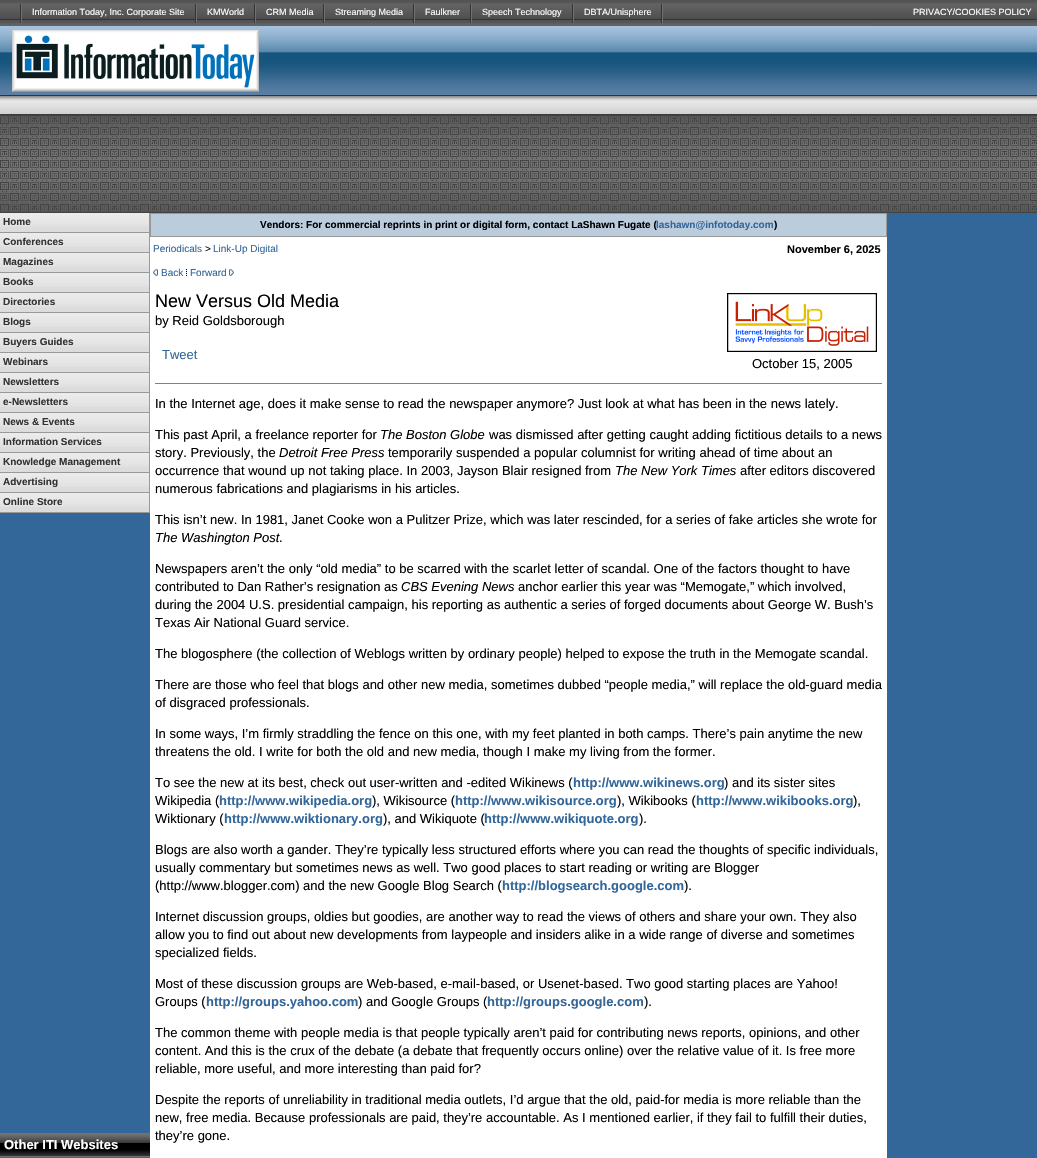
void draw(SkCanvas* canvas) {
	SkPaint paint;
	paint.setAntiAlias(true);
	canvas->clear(0xffffffff);
	canvas->drawImageRect(SkImages::DeferredFromEncodedData(SkData::MakeFromFileName("img1.png")), SkRect::MakeXYWH(0, 0, 872, 26), SkSamplingOptions());
	canvas->drawImageRect(SkImages::DeferredFromEncodedData(SkData::MakeFromFileName("img2.png")), SkRect::MakeXYWH(20, 4, 2, 19), SkSamplingOptions());
	SkFont f1(fontMgr->matchFamilyStyle("Liberation Sans", SkFontStyle::Normal()), 9);
	f1.setSubpixel(true);
	paint.setColor(0xffffffff);
	canvas->drawString("Information Today, Inc. Corporate Site", 32, 15, f1, paint);
	canvas->drawImageRect(SkImages::DeferredFromEncodedData(SkData::MakeFromFileName("img2.png")), SkRect::MakeXYWH(195, 4, 2, 19), SkSamplingOptions());
	canvas->drawString("KMWorld", 207, 15, f1, paint);
	canvas->drawImageRect(SkImages::DeferredFromEncodedData(SkData::MakeFromFileName("img2.png")), SkRect::MakeXYWH(254, 4, 2, 19), SkSamplingOptions());
	canvas->drawString("CRM Media", 266, 15, f1, paint);
	canvas->drawImageRect(SkImages::DeferredFromEncodedData(SkData::MakeFromFileName("img2.png")), SkRect::MakeXYWH(323, 4, 2, 19), SkSamplingOptions());
	canvas->drawString("Streaming Media", 335, 15, f1, paint);
	canvas->drawImageRect(SkImages::DeferredFromEncodedData(SkData::MakeFromFileName("img2.png")), SkRect::MakeXYWH(413, 4, 2, 19), SkSamplingOptions());
	canvas->drawString("Faulkner", 425, 15, f1, paint);
	canvas->drawImageRect(SkImages::DeferredFromEncodedData(SkData::MakeFromFileName("img2.png")), SkRect::MakeXYWH(470, 4, 2, 19), SkSamplingOptions());
	canvas->drawString("Speech Technology", 482, 15, f1, paint);
	canvas->drawImageRect(SkImages::DeferredFromEncodedData(SkData::MakeFromFileName("img2.png")), SkRect::MakeXYWH(572, 4, 2, 19), SkSamplingOptions());
	canvas->drawString("DBTA/Unisphere", 584, 15, f1, paint);
	canvas->drawImageRect(SkImages::DeferredFromEncodedData(SkData::MakeFromFileName("img2.png")), SkRect::MakeXYWH(661, 4, 2, 19), SkSamplingOptions());
	paint.setColor(0xff606060);
	canvas->drawRect(SkRect::MakeXYWH(872, 23, 165, 3), paint);
	canvas->drawImageRect(SkImages::DeferredFromEncodedData(SkData::MakeFromFileName("img3.png")), SkRect::MakeXYWH(872, 0, 165, 23), SkSamplingOptions());
	paint.setColor(0xffffffff);
	canvas->drawString("PRIVACY/COOKIES POLICY", 913, 15, f1, paint);
	canvas->drawImageRect(SkImages::DeferredFromEncodedData(SkData::MakeFromFileName("img4.png")), SkRect::MakeXYWH(0, 26, 280, 70), SkSamplingOptions());
	canvas->drawImageRect(SkImages::DeferredFromEncodedData(SkData::MakeFromFileName("img5.png")), SkRect::MakeXYWH(12, 30, 247, 62), SkSamplingOptions());
	canvas->drawImageRect(SkImages::DeferredFromEncodedData(SkData::MakeFromFileName("img6.png")), SkRect::MakeXYWH(280, 26, 757, 70), SkSamplingOptions());
	canvas->drawImageRect(SkImages::DeferredFromEncodedData(SkData::MakeFromFileName("img7.png")), SkRect::MakeXYWH(0, 96, 1037, 18), SkSamplingOptions());
	canvas->drawImageRect(SkImages::DeferredFromEncodedData(SkData::MakeFromFileName("img8.png")), SkRect::MakeXYWH(0, 114, 1037, 99), SkSamplingOptions());
	paint.setColor(0xff336699);
	canvas->drawRect(SkRect::MakeXYWH(0, 513, 150, 645), paint);
	paint.setColor(0xffdcdcdc);
	canvas->drawRect(SkRect::MakeXYWH(0, 227, 149, 285), paint);
	canvas->drawImageRect(SkImages::DeferredFromEncodedData(SkData::MakeFromFileName("img9.png")), SkRect::MakeXYWH(0, 213, 149, 14), SkSamplingOptions());
	paint.setColor(0xff999999);
	canvas->drawRect(SkRect::MakeXYWH(149, 213, 1, 300), paint);
	canvas->drawRect(SkRect::MakeXYWH(0, 232, 150, 1), paint);
	SkFont f2(fontMgr->matchFamilyStyle("Liberation Sans", SkFontStyle::Bold()), 10);
	f2.setSubpixel(true);
	paint.setColor(0xff333333);
	canvas->drawString("Home", 3, 225, f2, paint);
	canvas->drawImageRect(SkImages::DeferredFromEncodedData(SkData::MakeFromFileName("img9.png")), SkRect::MakeXYWH(0, 233, 149, 14), SkSamplingOptions());
	paint.setColor(0xff999999);
	canvas->drawRect(SkRect::MakeXYWH(0, 252, 150, 1), paint);
	paint.setColor(0xff333333);
	canvas->drawString("Conferences", 3, 245, f2, paint);
	canvas->drawImageRect(SkImages::DeferredFromEncodedData(SkData::MakeFromFileName("img9.png")), SkRect::MakeXYWH(0, 253, 149, 14), SkSamplingOptions());
	paint.setColor(0xff999999);
	canvas->drawRect(SkRect::MakeXYWH(0, 272, 150, 1), paint);
	paint.setColor(0xff333333);
	canvas->drawString("Magazines", 3, 265, f2, paint);
	canvas->drawImageRect(SkImages::DeferredFromEncodedData(SkData::MakeFromFileName("img9.png")), SkRect::MakeXYWH(0, 273, 149, 14), SkSamplingOptions());
	paint.setColor(0xff999999);
	canvas->drawRect(SkRect::MakeXYWH(0, 292, 150, 1), paint);
	paint.setColor(0xff333333);
	canvas->drawString("Books", 3, 285, f2, paint);
	canvas->drawImageRect(SkImages::DeferredFromEncodedData(SkData::MakeFromFileName("img9.png")), SkRect::MakeXYWH(0, 293, 149, 14), SkSamplingOptions());
	paint.setColor(0xff999999);
	canvas->drawRect(SkRect::MakeXYWH(0, 312, 150, 1), paint);
	paint.setColor(0xff333333);
	canvas->drawString("Directories", 3, 305, f2, paint);
	canvas->drawImageRect(SkImages::DeferredFromEncodedData(SkData::MakeFromFileName("img9.png")), SkRect::MakeXYWH(0, 313, 149, 14), SkSamplingOptions());
	paint.setColor(0xff999999);
	canvas->drawRect(SkRect::MakeXYWH(0, 332, 150, 1), paint);
	paint.setColor(0xff333333);
	canvas->drawString("Blogs", 3, 325, f2, paint);
	canvas->drawImageRect(SkImages::DeferredFromEncodedData(SkData::MakeFromFileName("img9.png")), SkRect::MakeXYWH(0, 333, 149, 14), SkSamplingOptions());
	paint.setColor(0xff999999);
	canvas->drawRect(SkRect::MakeXYWH(0, 352, 150, 1), paint);
	paint.setColor(0xff333333);
	canvas->drawString("Buyers Guides", 3, 345, f2, paint);
	canvas->drawImageRect(SkImages::DeferredFromEncodedData(SkData::MakeFromFileName("img9.png")), SkRect::MakeXYWH(0, 353, 149, 14), SkSamplingOptions());
	paint.setColor(0xff999999);
	canvas->drawRect(SkRect::MakeXYWH(0, 372, 150, 1), paint);
	paint.setColor(0xff333333);
	canvas->drawString("Webinars", 3, 365, f2, paint);
	canvas->drawImageRect(SkImages::DeferredFromEncodedData(SkData::MakeFromFileName("img9.png")), SkRect::MakeXYWH(0, 373, 149, 14), SkSamplingOptions());
	paint.setColor(0xff999999);
	canvas->drawRect(SkRect::MakeXYWH(0, 392, 150, 1), paint);
	paint.setColor(0xff333333);
	canvas->drawString("Newsletters", 3, 385, f2, paint);
	canvas->drawImageRect(SkImages::DeferredFromEncodedData(SkData::MakeFromFileName("img9.png")), SkRect::MakeXYWH(0, 393, 149, 14), SkSamplingOptions());
	paint.setColor(0xff999999);
	canvas->drawRect(SkRect::MakeXYWH(0, 412, 150, 1), paint);
	paint.setColor(0xff333333);
	canvas->drawString("e-Newsletters", 3, 405, f2, paint);
	canvas->drawImageRect(SkImages::DeferredFromEncodedData(SkData::MakeFromFileName("img9.png")), SkRect::MakeXYWH(0, 413, 149, 14), SkSamplingOptions());
	paint.setColor(0xff999999);
	canvas->drawRect(SkRect::MakeXYWH(0, 432, 150, 1), paint);
	paint.setColor(0xff333333);
	canvas->drawString("News & Events", 3, 425, f2, paint);
	canvas->drawImageRect(SkImages::DeferredFromEncodedData(SkData::MakeFromFileName("img9.png")), SkRect::MakeXYWH(0, 433, 149, 14), SkSamplingOptions());
	paint.setColor(0xff999999);
	canvas->drawRect(SkRect::MakeXYWH(0, 452, 150, 1), paint);
	paint.setColor(0xff333333);
	canvas->drawString("Information Services", 3, 445, f2, paint);
	canvas->drawImageRect(SkImages::DeferredFromEncodedData(SkData::MakeFromFileName("img9.png")), SkRect::MakeXYWH(0, 453, 149, 14), SkSamplingOptions());
	paint.setColor(0xff999999);
	canvas->drawRect(SkRect::MakeXYWH(0, 472, 150, 1), paint);
	paint.setColor(0xff333333);
	canvas->drawString("Knowledge Management", 3, 465, f2, paint);
	canvas->drawImageRect(SkImages::DeferredFromEncodedData(SkData::MakeFromFileName("img9.png")), SkRect::MakeXYWH(0, 473, 149, 14), SkSamplingOptions());
	paint.setColor(0xff999999);
	canvas->drawRect(SkRect::MakeXYWH(0, 492, 150, 1), paint);
	paint.setColor(0xff333333);
	canvas->drawString("Advertising", 3, 485, f2, paint);
	canvas->drawImageRect(SkImages::DeferredFromEncodedData(SkData::MakeFromFileName("img9.png")), SkRect::MakeXYWH(0, 493, 149, 14), SkSamplingOptions());
	paint.setColor(0xff999999);
	canvas->drawRect(SkRect::MakeXYWH(0, 512, 150, 1), paint);
	paint.setColor(0xff333333);
	canvas->drawString("Online Store", 3, 505, f2, paint);
	canvas->drawImageRect(SkImages::DeferredFromEncodedData(SkData::MakeFromFileName("img10.png")), SkRect::MakeXYWH(0, 1133, 150, 24), SkSamplingOptions());
	SkFont f3(fontMgr->matchFamilyStyle("Liberation Sans", SkFontStyle::Bold()), 13);
	f3.setSubpixel(true);
	paint.setColor(0xffffffff);
	canvas->drawString("Other ITI Websites", 4, 1149, f3, paint);
	paint.setColor(0xffbbccdd);
	canvas->drawRect(SkRect::MakeXYWH(150.5, 213.5, 736, 23), paint);
	paint.setStroke(true);
	paint.setStrokeWidth(1);
	paint.setColor(0xff999999);
	canvas->drawRect(SkRect::MakeXYWH(150.5, 213.5, 736, 23), paint);
	paint.setStroke(false);
	paint.setColor(0xff000000);
	canvas->drawString("Vendors: For commercial reprints in print or digital form, contact LaShawn Fugate (", 260, 228, f2, paint);
	paint.setColor(0xff336699);
	canvas->drawString("lashawn@infotoday.com", 656, 228, f2, paint);
	paint.setColor(0xff000000);
	canvas->drawString(")", 774, 228, f2, paint);
	SkFont f4(fontMgr->matchFamilyStyle("Liberation Sans", SkFontStyle::Normal()), 10);
	f4.setSubpixel(true);
	paint.setColor(0xff336699);
	canvas->drawString("Periodicals", 153, 252, f4, paint);
	paint.setColor(0xff000000);
	canvas->drawString(">", 205, 252, f4, paint);
	paint.setColor(0xff336699);
	canvas->drawString("Link-Up Digital", 213, 252, f4, paint);
	SkFont f5(fontMgr->matchFamilyStyle("Liberation Sans", SkFontStyle::Bold()), 11);
	f5.setSubpixel(true);
	paint.setColor(0xff000000);
	canvas->drawString("November 6, 2025", 787, 253, f5, paint);
	canvas->drawImageRect(SkImages::DeferredFromEncodedData(SkData::MakeFromFileName("img11.png")), SkRect::MakeXYWH(153, 269, 5, 7), SkSamplingOptions());
	paint.setColor(0xff336699);
	canvas->drawString("Back", 161, 276, f4, paint);
	canvas->drawImageRect(SkImages::DeferredFromEncodedData(SkData::MakeFromFileName("img12.png")), SkRect::MakeXYWH(186, 269, 1, 7), SkSamplingOptions());
	canvas->drawString("Forward", 190, 276, f4, paint);
	canvas->drawImageRect(SkImages::DeferredFromEncodedData(SkData::MakeFromFileName("img13.png")), SkRect::MakeXYWH(229, 269, 5, 7), SkSamplingOptions());
	SkFont f6(fontMgr->matchFamilyStyle("Liberation Sans", SkFontStyle::Normal()), 18);
	f6.setSubpixel(true);
	paint.setColor(0xff000000);
	canvas->drawString("New Versus Old Media", 155, 307, f6, paint);
	SkFont f7(fontMgr->matchFamilyStyle("Liberation Sans", SkFontStyle::Normal()), 13);
	f7.setSubpixel(true);
	canvas->drawString("by Reid Goldsborough", 155, 325, f7, paint);
	paint.setColor(0xff336699);
	canvas->drawString("Tweet", 162, 359, f7, paint);
	canvas->drawImageRect(SkImages::DeferredFromEncodedData(SkData::MakeFromFileName("img14.png")), SkRect::MakeXYWH(727, 293, 150, 59), SkSamplingOptions());
	paint.setColor(0xff000000);
	canvas->drawString("October 15, 2005", 752, 368, f7, paint);
	paint.setColor(0xff808080);
	canvas->drawRect(SkRect::MakeXYWH(155, 383, 727, 1), paint);
	paint.setColor(0xff000000);
	canvas->drawString("In the Internet age, does it make sense to read the newspaper anymore? Just look at what has been in the news lately.", 155, 408, f7, paint);
	canvas->drawString("This past April, a freelance reporter for", 155, 439, f7, paint);
	SkFont f8(fontMgr->matchFamilyStyle("Liberation Sans", SkFontStyle::Italic()), 13);
	f8.setSubpixel(true);
	canvas->drawString("The Boston Globe", 380, 439, f8, paint);
	canvas->drawString("was dismissed after getting caught adding fictitious details to a news", 489, 439, f7, paint);
	canvas->drawString("story. Previously, the", 155, 457, f7, paint);
	canvas->drawString("Detroit Free Press", 279, 457, f8, paint);
	canvas->drawString("temporarily suspended a popular columnist for writing ahead of time about an", 388, 457, f7, paint);
	canvas->drawString("occurrence that wound up not taking place. In 2003, Jayson Blair resigned from", 155, 475, f7, paint);
	canvas->drawString("The New York Times", 615, 475, f8, paint);
	canvas->drawString("after editors discovered", 740, 475, f7, paint);
	canvas->drawString("numerous fabrications and plagiarisms in his articles.", 155, 493, f7, paint);
	canvas->drawString("This isn’t new. In 1981, Janet Cooke won a Pulitzer Prize, which was later rescinded, for a series of fake articles she wrote for", 155, 524, f7, paint);
	canvas->drawString("The Washington Post", 155, 542, f8, paint);
	canvas->drawString(".", 279, 542, f7, paint);
	canvas->drawString("Newspapers aren’t the only “old media” to be scarred with the scarlet letter of scandal. One of the factors thought to have", 155, 573, f7, paint);
	canvas->drawString("contributed to Dan Rather’s resignation as", 155, 591, f7, paint);
	canvas->drawString("CBS Evening News", 401, 591, f8, paint);
	canvas->drawString("anchor earlier this year was “Memogate,” which involved,", 518, 591, f7, paint);
	canvas->drawString("during the 2004 U.S. presidential campaign, his reporting as authentic a series of forged documents about George W. Bush’s", 155, 609, f7, paint);
	canvas->drawString("Texas Air National Guard service.", 155, 627, f7, paint);
	canvas->drawString("The blogosphere (the collection of Weblogs written by ordinary people) helped to expose the truth in the Memogate scandal.", 155, 658, f7, paint);
	canvas->drawString("There are those who feel that blogs and other new media, sometimes dubbed “people media,” will replace the old-guard media", 155, 689, f7, paint);
	canvas->drawString("of disgraced professionals.", 155, 707, f7, paint);
	canvas->drawString("In some ways, I’m firmly straddling the fence on this one, with my feet planted in both camps. There’s pain anytime the new", 155, 738, f7, paint);
	canvas->drawString("threatens the old. I write for both the old and new media, though I make my living from the former.", 155, 756, f7, paint);
	canvas->drawString("To see the new at its best, check out user-written and -edited Wikinews (", 155, 787, f7, paint);
	paint.setColor(0xff336699);
	canvas->drawString("http://www.wikinews.org", 573, 787, f3, paint);
	paint.setColor(0xff000000);
	canvas->drawString(") and its sister sites", 724, 787, f7, paint);
	canvas->drawString("Wikipedia (", 155, 805, f7, paint);
	paint.setColor(0xff336699);
	canvas->drawString("http://www.wikipedia.org", 219, 805, f3, paint);
	paint.setColor(0xff000000);
	canvas->drawString("), Wikisource (", 372, 805, f7, paint);
	paint.setColor(0xff336699);
	canvas->drawString("http://www.wikisource.org", 455, 805, f3, paint);
	paint.setColor(0xff000000);
	canvas->drawString("), Wikibooks (", 617, 805, f7, paint);
	paint.setColor(0xff336699);
	canvas->drawString("http://www.wikibooks.org", 696, 805, f3, paint);
	paint.setColor(0xff000000);
	canvas->drawString("),", 853, 805, f7, paint);
	canvas->drawString("Wiktionary (", 155, 823, f7, paint);
	paint.setColor(0xff336699);
	canvas->drawString("http://www.wiktionary.org", 224, 823, f3, paint);
	paint.setColor(0xff000000);
	canvas->drawString("), and Wikiquote (", 383, 823, f7, paint);
	paint.setColor(0xff336699);
	canvas->drawString("http://www.wikiquote.org", 484, 823, f3, paint);
	paint.setColor(0xff000000);
	canvas->drawString(").", 639, 823, f7, paint);
	canvas->drawString("Blogs are also worth a gander. They’re typically less structured efforts where you can read the thoughts of specific individuals,", 155, 854, f7, paint);
	canvas->drawString("usually commentary but sometimes news as well. Two good places to start reading or writing are Blogger", 155, 872, f7, paint);
	canvas->drawString("(http://www.blogger.com) and the new Google Blog Search (", 155, 890, f7, paint);
	paint.setColor(0xff336699);
	canvas->drawString("http://blogsearch.google.com", 502, 890, f3, paint);
	paint.setColor(0xff000000);
	canvas->drawString(").", 684, 890, f7, paint);
	canvas->drawString("Internet discussion groups, oldies but goodies, are another way to read the views of others and share your own. They also", 155, 921, f7, paint);
	canvas->drawString("allow you to find out about new developments from laypeople and insiders alike in a wide range of diverse and sometimes", 155, 939, f7, paint);
	canvas->drawString("specialized fields.", 155, 957, f7, paint);
	canvas->drawString("Most of these discussion groups are Web-based, e-mail-based, or Usenet-based. Two good starting places are Yahoo!", 155, 988, f7, paint);
	canvas->drawString("Groups (", 155, 1006, f7, paint);
	paint.setColor(0xff336699);
	canvas->drawString("http://groups.yahoo.com", 206, 1006, f3, paint);
	paint.setColor(0xff000000);
	canvas->drawString(") and Google Groups (", 358, 1006, f7, paint);
	paint.setColor(0xff336699);
	canvas->drawString("http://groups.google.com", 487, 1006, f3, paint);
	paint.setColor(0xff000000);
	canvas->drawString(").", 644, 1006, f7, paint);
	canvas->drawString("The common theme with people media is that people typically aren’t paid for contributing news reports, opinions, and other", 155, 1037, f7, paint);
	canvas->drawString("content. And this is the crux of the debate (a debate that frequently occurs online) over the relative value of it. Is free more", 155, 1055, f7, paint);
	canvas->drawString("reliable, more useful, and more interesting than paid for?", 155, 1073, f7, paint);
	canvas->drawString("Despite the reports of unreliability in traditional media outlets, I’d argue that the old, paid-for media is more reliable than the", 155, 1104, f7, paint);
	canvas->drawString("new, free media. Because professionals are paid, they’re accountable. As I mentioned earlier, if they fail to fulfill their duties,", 155, 1122, f7, paint);
	canvas->drawString("they’re gone.", 155, 1140, f7, paint);
	paint.setColor(0xff336699);
	canvas->drawRect(SkRect::MakeXYWH(887, 213, 150, 945), paint);
}
